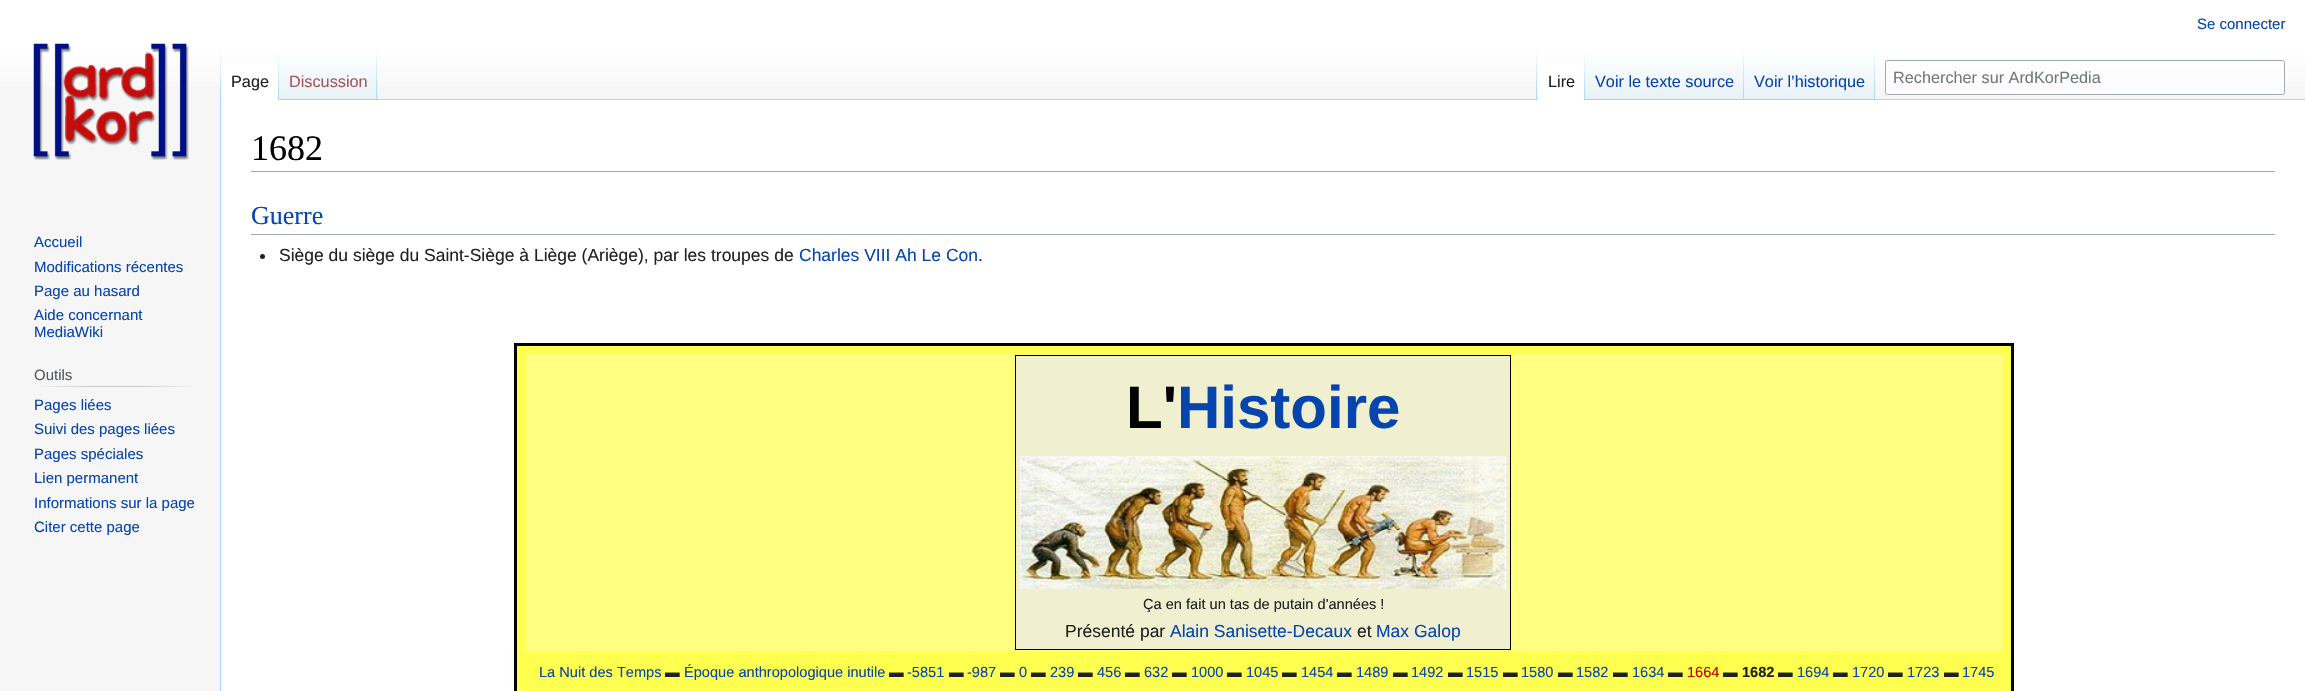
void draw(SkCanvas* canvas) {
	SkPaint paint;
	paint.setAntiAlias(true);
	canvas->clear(0xfff6f6f6);
	{
		const SkColor colors[] = {0xffffffff, 0xfff6f6f6};
		const float stops[] = {0.5, 1};
		const SkPoint ends[] = {{1153, 0}, {1153, 100}};
		paint.setShader(SkGradientShader::MakeLinear(ends, colors, stops, 2, SkTileMode::kClamp));
		paint.setAlpha(255);
	}
	canvas->drawRect(SkRect::MakeXYWH(0, 0, 2305, 86), paint);
	SkFont f1(fontMgr->matchFamilyStyle("Liberation Sans", SkFontStyle::Normal()), 15);
	f1.setSubpixel(true);
	paint.setShader(nullptr);
	paint.setColor(0xff0645ad);
	canvas->drawString("Se connecter", 2197, 29, f1, paint);
	paint.setColor(0xffa7d7f9);
	canvas->drawRect(SkRect::MakeXYWH(220, 99, 1, 592), paint);
	{
		const SkColor colors[] = {0x00a7d7f9, 0xffa7d7f9};
		const float stops[] = {0, 1};
		const SkPoint ends[] = {{221, 50}, {221, 100}};
		paint.setShader(SkGradientShader::MakeLinear(ends, colors, stops, 2, SkTileMode::kClamp));
		paint.setAlpha(255);
	}
	canvas->drawRect(SkRect::MakeXYWH(220, 50, 1, 50), paint);
	paint.setShader(nullptr);
	paint.setColor(0xffffffff);
	canvas->drawRect(SkRect::MakeXYWH(221, 64, 57, 36), paint);
	{
		const SkColor colors[] = {0xffffffff, 0xffa7d7f9};
		const float stops[] = {0, 1};
		const SkPoint ends[] = {{278, 50}, {278, 100}};
		paint.setShader(SkGradientShader::MakeLinear(ends, colors, stops, 2, SkTileMode::kClamp));
		paint.setAlpha(255);
	}
	canvas->drawRect(SkRect::MakeXYWH(278, 50, 1, 50), paint);
	SkFont f2(fontMgr->matchFamilyStyle("Liberation Sans", SkFontStyle::Normal()), 16.25);
	f2.setSubpixel(true);
	paint.setShader(nullptr);
	paint.setColor(0xff202122);
	canvas->drawString("Page", 231, 87, f2, paint);
	{
		const SkColor colors[] = {0xff77c1f6, 0xffe8f2f8, 0xffffffff};
		const float stops[] = {0, 0.03, 1};
		const SkPoint ends[] = {{328, 100}, {328, 50}};
		paint.setShader(SkGradientShader::MakeLinear(ends, colors, stops, 3, SkTileMode::kClamp));
		paint.setAlpha(255);
	}
	canvas->drawRect(SkRect::MakeXYWH(279, 57, 99, 43), paint);
	{
		const SkColor colors[] = {0x00a7d7f9, 0xffa7d7f9};
		const float stops[] = {0, 1};
		const SkPoint ends[] = {{377, 50}, {377, 100}};
		paint.setShader(SkGradientShader::MakeLinear(ends, colors, stops, 2, SkTileMode::kClamp));
		paint.setAlpha(255);
	}
	canvas->drawRect(SkRect::MakeXYWH(376, 50, 1, 50), paint);
	paint.setShader(nullptr);
	paint.setColor(0xffa55858);
	canvas->drawString("Discussion", 289, 87, f2, paint);
	paint.setColor(0xffa7d7f9);
	canvas->drawRect(SkRect::MakeXYWH(378, 99, 1927, 1), paint);
	{
		const SkColor colors[] = {0x00a7d7f9, 0xffa7d7f9};
		const float stops[] = {0, 1};
		const SkPoint ends[] = {{1537, 50}, {1537, 100}};
		paint.setShader(SkGradientShader::MakeLinear(ends, colors, stops, 2, SkTileMode::kClamp));
		paint.setAlpha(255);
	}
	canvas->drawRect(SkRect::MakeXYWH(1536, 50, 1, 50), paint);
	paint.setShader(nullptr);
	paint.setColor(0xffffffff);
	canvas->drawRect(SkRect::MakeXYWH(1538, 64, 46, 36), paint);
	{
		const SkColor colors[] = {0xffffffff, 0xffa7d7f9};
		const float stops[] = {0, 1};
		const SkPoint ends[] = {{1584, 50}, {1584, 100}};
		paint.setShader(SkGradientShader::MakeLinear(ends, colors, stops, 2, SkTileMode::kClamp));
		paint.setAlpha(255);
	}
	canvas->drawRect(SkRect::MakeXYWH(1584, 50, 1, 50), paint);
	paint.setShader(nullptr);
	paint.setColor(0xff202122);
	canvas->drawString("Lire", 1548, 87, f2, paint);
	{
		const SkColor colors[] = {0xff77c1f6, 0xffe8f2f8, 0xffffffff};
		const float stops[] = {0, 0.03, 1};
		const SkPoint ends[] = {{1664, 100}, {1664, 50}};
		paint.setShader(SkGradientShader::MakeLinear(ends, colors, stops, 3, SkTileMode::kClamp));
		paint.setAlpha(255);
	}
	canvas->drawRect(SkRect::MakeXYWH(1585, 57, 159, 43), paint);
	{
		const SkColor colors[] = {0x00a7d7f9, 0xffa7d7f9};
		const float stops[] = {0, 1};
		const SkPoint ends[] = {{1743, 50}, {1743, 100}};
		paint.setShader(SkGradientShader::MakeLinear(ends, colors, stops, 2, SkTileMode::kClamp));
		paint.setAlpha(255);
	}
	canvas->drawRect(SkRect::MakeXYWH(1743, 50, 1, 50), paint);
	paint.setShader(nullptr);
	paint.setColor(0xff0645ad);
	canvas->drawString("Voir le texte source", 1595, 87, f2, paint);
	{
		const SkColor colors[] = {0xff77c1f6, 0xffe8f2f8, 0xffffffff};
		const float stops[] = {0, 0.03, 1};
		const SkPoint ends[] = {{1809, 100}, {1809, 50}};
		paint.setShader(SkGradientShader::MakeLinear(ends, colors, stops, 3, SkTileMode::kClamp));
		paint.setAlpha(255);
	}
	canvas->drawRect(SkRect::MakeXYWH(1744, 57, 131, 43), paint);
	{
		const SkColor colors[] = {0x00a7d7f9, 0xffa7d7f9};
		const float stops[] = {0, 1};
		const SkPoint ends[] = {{1874, 50}, {1874, 100}};
		paint.setShader(SkGradientShader::MakeLinear(ends, colors, stops, 2, SkTileMode::kClamp));
		paint.setAlpha(255);
	}
	canvas->drawRect(SkRect::MakeXYWH(1874, 50, 1, 50), paint);
	paint.setShader(nullptr);
	paint.setColor(0xff0645ad);
	canvas->drawString("Voir l’historique", 1754, 87, f2, paint);
	paint.setColor(0x80ffffff);
	canvas->drawRoundRect(SkRect::MakeXYWH(1885.5, 60.5, 399, 34), 2, 2, paint);
	paint.setStroke(true);
	paint.setStrokeWidth(1);
	paint.setColor(0xffa2a9b1);
	canvas->drawRoundRect(SkRect::MakeXYWH(1885.5, 60.5, 399, 34), 2, 2, paint);
	paint.setStroke(false);
	paint.setColor(0xff72777d);
	canvas->drawString("Rechercher sur ArdKorPedia", 1893, 83, f2, paint);
	canvas->drawImageRect(SkImages::DeferredFromEncodedData(SkData::MakeFromFileName("img1.png")), SkRect::MakeXYWH(33, 43, 156, 117), SkSamplingOptions());
	paint.setColor(0xff0645ad);
	canvas->drawString("Accueil", 34, 247, f1, paint);
	canvas->drawString("Modifications récentes", 34, 272, f1, paint);
	canvas->drawString("Page au hasard", 34, 296, f1, paint);
	canvas->drawString("Aide concernant", 34, 320, f1, paint);
	canvas->drawString("MediaWiki", 34, 337, f1, paint);
	{
		const SkColor colors[] = {0xfff6f6f6, 0xffc8ccd1, 0xffc8ccd1, 0xfff6f6f6};
		const float stops[] = {0, 0.33, 0.66, 1};
		const SkPoint ends[] = {{34, 387}, {198, 387}};
		paint.setShader(SkGradientShader::MakeLinear(ends, colors, stops, 4, SkTileMode::kClamp));
		paint.setAlpha(255);
	}
	canvas->drawRect(SkRect::MakeXYWH(34, 386, 164, 1), paint);
	paint.setShader(nullptr);
	paint.setColor(0xff54595d);
	canvas->drawString("Outils", 34, 380, f1, paint);
	paint.setColor(0xff0645ad);
	canvas->drawString("Pages liées", 34, 410, f1, paint);
	canvas->drawString("Suivi des pages liées", 34, 434, f1, paint);
	canvas->drawString("Pages spéciales", 34, 459, f1, paint);
	canvas->drawString("Lien permanent", 34, 483, f1, paint);
	canvas->drawString("Informations sur la page", 34, 508, f1, paint);
	canvas->drawString("Citer cette page", 34, 532, f1, paint);
	paint.setColor(0xffffffff);
	canvas->drawRect(SkRect::MakeXYWH(221, 100, 2084, 591), paint);
	paint.setColor(0xffa2a9b1);
	canvas->drawRect(SkRect::MakeXYWH(251, 171, 2024, 1), paint);
	SkFont f3(fontMgr->matchFamilyStyle("Liberation Serif", SkFontStyle::Normal()), 36);
	f3.setSubpixel(true);
	paint.setColor(0xff000000);
	canvas->drawString("1682", 251, 160, f3, paint);
	paint.setColor(0xffa2a9b1);
	canvas->drawRect(SkRect::MakeXYWH(251, 234, 2024, 1), paint);
	SkFont f4(fontMgr->matchFamilyStyle("Liberation Serif", SkFontStyle::Normal()), 26);
	f4.setSubpixel(true);
	paint.setColor(0xff0645ad);
	canvas->drawString("Guerre", 251, 224, f4, paint);
	paint.setColor(0xff202122);
	canvas->drawCircle(262.5, 256.5, 2.5, paint);
	SkFont f5(fontMgr->matchFamilyStyle("Liberation Sans", SkFontStyle::Normal()), 17.5);
	f5.setSubpixel(true);
	canvas->drawString("Siège du siège du Saint-Siège à Liège (Ariège), par les troupes de", 279, 261, f5, paint);
	paint.setColor(0xff0645ad);
	canvas->drawString("Charles VIII Ah Le Con", 799, 261, f5, paint);
	paint.setColor(0xff202122);
	canvas->drawString(".", 978, 261, f5, paint);
	paint.setColor(0xffffff50);
	canvas->drawRect(SkRect::MakeXYWH(515.5, 344.5, 1497, 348), paint);
	paint.setStroke(true);
	paint.setStrokeWidth(3);
	paint.setColor(0xff000000);
	canvas->drawRect(SkRect::MakeXYWH(515.5, 344.5, 1497, 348), paint);
	paint.setStroke(false);
	paint.setColor(0xffffff80);
	canvas->drawRect(SkRect::MakeXYWH(525, 354, 1478, 297), paint);
	paint.setColor(0xfff0f0d0);
	canvas->drawRect(SkRect::MakeXYWH(1015.5, 355.5, 495, 294), paint);
	paint.setStroke(true);
	paint.setStrokeWidth(1);
	paint.setColor(0xff000000);
	canvas->drawRect(SkRect::MakeXYWH(1015.5, 355.5, 495, 294), paint);
	SkFont f6(fontMgr->matchFamilyStyle("Liberation Sans", SkFontStyle::Bold()), 60);
	f6.setSubpixel(true);
	paint.setStroke(false);
	canvas->drawString("L'", 1126, 428, f6, paint);
	paint.setColor(0xff0645ad);
	canvas->drawString("Histoire", 1177, 428, f6, paint);
	canvas->drawImageRect(SkImages::DeferredFromEncodedData(SkData::MakeFromFileName("img2.png")), SkRect::MakeXYWH(1020, 456, 487, 133), SkSamplingOptions());
	SkFont f7(fontMgr->matchFamilyStyle("Liberation Sans", SkFontStyle::Normal()), 14.6);
	f7.setSubpixel(true);
	paint.setColor(0xff202122);
	canvas->drawString("Ça en fait un tas de putain d'années !", 1143, 609, f7, paint);
	canvas->drawString("Présenté par", 1065, 637, f5, paint);
	paint.setColor(0xff0645ad);
	canvas->drawString("Alain Sanisette-Decaux", 1170, 637, f5, paint);
	paint.setColor(0xff202122);
	canvas->drawString("et", 1357, 637, f5, paint);
	paint.setColor(0xff0645ad);
	canvas->drawString("Max Galop", 1376, 637, f5, paint);
	SkFont f8(fontMgr->matchFamilyStyle("Liberation Sans", SkFontStyle::Normal()), 21);
	f8.setSubpixel(true);
	paint.setColor(0xffffff00);
	canvas->drawString("·", 532, 677, f8, paint);
	paint.setColor(0xff0645ad);
	canvas->drawString("La Nuit des Temps", 539, 677, f7, paint);
	canvas->drawString("Époque anthropologique inutile", 684, 677, f7, paint);
	canvas->drawString("-5851", 907, 677, f7, paint);
	canvas->drawString("-987", 967, 677, f7, paint);
	canvas->drawString("0", 1019, 677, f7, paint);
	canvas->drawString("239", 1050, 677, f7, paint);
	canvas->drawString("456", 1097, 677, f7, paint);
	canvas->drawString("632", 1144, 677, f7, paint);
	canvas->drawString("1000", 1191, 677, f7, paint);
	canvas->drawString("1045", 1246, 677, f7, paint);
	canvas->drawString("1454", 1301, 677, f7, paint);
	canvas->drawString("1489", 1356, 677, f7, paint);
	canvas->drawString("1492", 1411, 677, f7, paint);
	canvas->drawString("1515", 1466, 677, f7, paint);
	canvas->drawString("1580", 1521, 677, f7, paint);
	canvas->drawString("1582", 1576, 677, f7, paint);
	canvas->drawString("1634", 1632, 677, f7, paint);
	paint.setColor(0xffba0000);
	canvas->drawString("1664", 1687, 677, f7, paint);
	SkFont f9(fontMgr->matchFamilyStyle("Liberation Sans", SkFontStyle::Bold()), 14.6);
	f9.setSubpixel(true);
	paint.setColor(0xff202122);
	canvas->drawString("1682", 1742, 677, f9, paint);
	paint.setColor(0xff0645ad);
	canvas->drawString("1694", 1797, 677, f7, paint);
	canvas->drawString("1720", 1852, 677, f7, paint);
	canvas->drawString("1723", 1907, 677, f7, paint);
	canvas->drawString("1745", 1962, 677, f7, paint);
	paint.setColor(0xff202122);
	canvas->drawString("▬", 665, 677, f7, paint);
	canvas->drawString("▬", 889, 677, f7, paint);
	canvas->drawString("▬", 949, 677, f7, paint);
	canvas->drawString("▬", 1000, 677, f7, paint);
	canvas->drawString("▬", 1031, 677, f7, paint);
	canvas->drawString("▬", 1078, 677, f7, paint);
	canvas->drawString("▬", 1125, 677, f7, paint);
	canvas->drawString("▬", 1172, 677, f7, paint);
	canvas->drawString("▬", 1227, 677, f7, paint);
	canvas->drawString("▬", 1282, 677, f7, paint);
	canvas->drawString("▬", 1337, 677, f7, paint);
	canvas->drawString("▬", 1393, 677, f7, paint);
	canvas->drawString("▬", 1448, 677, f7, paint);
	canvas->drawString("▬", 1503, 677, f7, paint);
	canvas->drawString("▬", 1558, 677, f7, paint);
	canvas->drawString("▬", 1613, 677, f7, paint);
	canvas->drawString("▬", 1668, 677, f7, paint);
	canvas->drawString("▬", 1723, 677, f7, paint);
	canvas->drawString("▬", 1778, 677, f7, paint);
	canvas->drawString("▬", 1833, 677, f7, paint);
	canvas->drawString("▬", 1888, 677, f7, paint);
	canvas->drawString("▬", 1944, 677, f7, paint);
}
